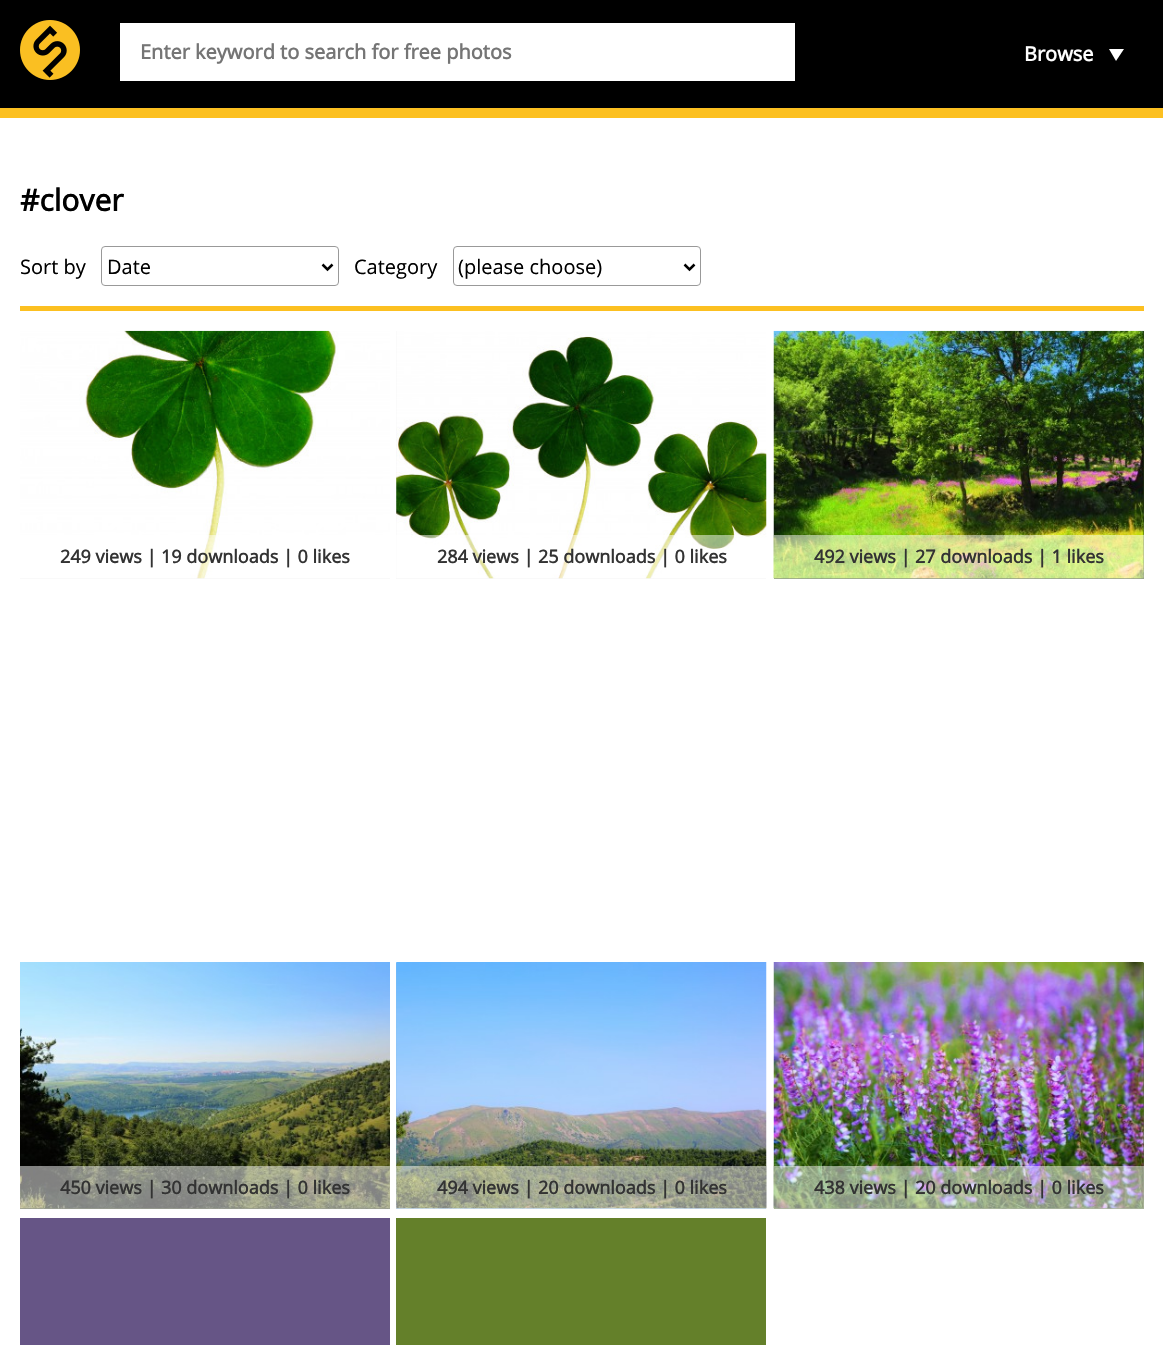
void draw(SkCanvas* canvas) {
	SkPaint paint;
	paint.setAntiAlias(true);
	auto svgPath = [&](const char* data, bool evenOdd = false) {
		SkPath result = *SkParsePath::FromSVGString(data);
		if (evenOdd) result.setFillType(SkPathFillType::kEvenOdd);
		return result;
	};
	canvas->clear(0xffffffff);
	paint.setColor(0xff000000);
	canvas->drawRect(SkRect::MakeXYWH(0, 0, 1163, 108), paint);
	paint.setColor(0xfffcc021);
	canvas->drawRect(SkRect::MakeXYWH(0, 108, 1163, 10), paint);
	canvas->drawImageRect(SkImages::DeferredFromEncodedData(SkData::MakeFromFileName("img1.png")), SkRect::MakeXYWH(20, 20, 60, 60), SkSamplingOptions());
	paint.setColor(0xffffffff);
	canvas->drawRect(SkRect::MakeXYWH(120, 23, 675, 58), paint);
	SkFont f1(fontMgr->matchFamilyStyle("Open Sans", SkFontStyle::Bold()), 20);
	f1.setSubpixel(true);
	paint.setColor(0xff757575);
	canvas->drawString("Enter keyword to search for free photos", 140, 59, f1, paint);
	paint.setColor(0xffffffff);
	canvas->drawString("Browse", 1024, 61, f1, paint);
	canvas->drawPath(svgPath("M1109 49H1124L1116 61Z"), paint);
	SkFont f2(fontMgr->matchFamilyStyle("Open Sans", SkFontStyle::Bold()), 30);
	f2.setSubpixel(true);
	paint.setColor(0xff000000);
	canvas->drawString("#clover", 20, 211, f2, paint);
	SkFont f3(fontMgr->matchFamilyStyle("Open Sans", SkFontStyle::Normal()), 20);
	f3.setSubpixel(true);
	canvas->drawString("Sort by", 20, 274, f3, paint);
	paint.setStroke(true);
	paint.setStrokeWidth(1);
	paint.setColor(0xff999999);
	canvas->drawRoundRect(SkRect::MakeXYWH(101.5, 246.5, 237, 39), 3.5, 3.5, paint);
	paint.setStrokeWidth(2.5);
	paint.setColor(0xff000000);
	canvas->drawPath(svgPath("M322.5 264.5L327.5 269.5L332.5 264.5"), paint);
	paint.setStroke(false);
	canvas->drawString("Date", 107, 274, f3, paint);
	canvas->drawString("Category", 354, 274, f3, paint);
	paint.setStroke(true);
	paint.setStrokeWidth(1);
	paint.setColor(0xff999999);
	canvas->drawRoundRect(SkRect::MakeXYWH(453.5, 246.5, 247, 39), 3.5, 3.5, paint);
	paint.setStrokeWidth(2.5);
	paint.setColor(0xff000000);
	canvas->drawPath(svgPath("M684.5 264.5L689.5 269.5L694.5 264.5"), paint);
	paint.setStroke(false);
	canvas->drawString("(please choose)", 458, 274, f3, paint);
	paint.setColor(0xfffcc021);
	canvas->drawRect(SkRect::MakeXYWH(20, 306, 1124, 5), paint);
	paint.setColor(0xffeeeeee);
	canvas->drawRect(SkRect::MakeXYWH(20, 578, 370, 1), paint);
	canvas->drawImageRect(SkImages::DeferredFromEncodedData(SkData::MakeFromFileName("img2.png")), SkRect::MakeXYWH(20, 330, 370, 249), SkSamplingOptions());
	paint.setColor(0x80ffffff);
	canvas->drawRect(SkRect::MakeXYWH(20, 535, 370, 44), paint);
	SkFont f4(fontMgr->matchFamilyStyle("Open Sans", SkFontStyle::Bold()), 18);
	f4.setSubpixel(true);
	paint.setColor(0xff333333);
	canvas->drawString("249 views | 19 downloads | 0 likes", 60, 563, f4, paint);
	paint.setColor(0xffeeeeee);
	canvas->drawRect(SkRect::MakeXYWH(396, 331, 370, 248), paint);
	canvas->drawImageRect(SkImages::DeferredFromEncodedData(SkData::MakeFromFileName("img3.png")), SkRect::MakeXYWH(396, 331, 371, 248), SkSamplingOptions());
	paint.setColor(0x80ffffff);
	canvas->drawRect(SkRect::MakeXYWH(396, 535, 370, 44), paint);
	paint.setColor(0xff333333);
	canvas->drawString("284 views | 25 downloads | 0 likes", 437, 563, f4, paint);
	paint.setColor(0xff213510);
	canvas->drawRect(SkRect::MakeXYWH(774, 331, 370, 248), paint);
	canvas->drawImageRect(SkImages::DeferredFromEncodedData(SkData::MakeFromFileName("img4.png")), SkRect::MakeXYWH(773, 330, 371, 249), SkSamplingOptions());
	paint.setColor(0x80ffffff);
	canvas->drawRect(SkRect::MakeXYWH(774, 535, 370, 44), paint);
	paint.setColor(0xff333333);
	canvas->drawString("492 views | 27 downloads | 1 likes", 814, 563, f4, paint);
	paint.setColor(0xff2e361d);
	canvas->drawRect(SkRect::MakeXYWH(20, 1208, 370, 1), paint);
	canvas->drawImageRect(SkImages::DeferredFromEncodedData(SkData::MakeFromFileName("img5.png")), SkRect::MakeXYWH(20, 962, 370, 247), SkSamplingOptions());
	paint.setColor(0x80ffffff);
	canvas->drawRect(SkRect::MakeXYWH(20, 1166, 370, 43), paint);
	paint.setColor(0xff333333);
	canvas->drawString("450 views | 30 downloads | 0 likes", 60, 1194, f4, paint);
	paint.setColor(0xff8ebcea);
	canvas->drawRect(SkRect::MakeXYWH(396, 963, 370, 246), paint);
	canvas->drawImageRect(SkImages::DeferredFromEncodedData(SkData::MakeFromFileName("img6.png")), SkRect::MakeXYWH(396, 962, 371, 247), SkSamplingOptions());
	paint.setColor(0x80ffffff);
	canvas->drawRect(SkRect::MakeXYWH(396, 1166, 370, 43), paint);
	paint.setColor(0xff333333);
	canvas->drawString("494 views | 20 downloads | 0 likes", 437, 1194, f4, paint);
	paint.setColor(0xff546a39);
	canvas->drawRect(SkRect::MakeXYWH(774, 963, 370, 246), paint);
	canvas->drawImageRect(SkImages::DeferredFromEncodedData(SkData::MakeFromFileName("img7.png")), SkRect::MakeXYWH(773, 962, 371, 247), SkSamplingOptions());
	paint.setColor(0x80ffffff);
	canvas->drawRect(SkRect::MakeXYWH(774, 1166, 370, 43), paint);
	paint.setColor(0xff333333);
	canvas->drawString("438 views | 20 downloads | 0 likes", 814, 1194, f4, paint);
	paint.setColor(0xff665586);
	canvas->drawRect(SkRect::MakeXYWH(20, 1218, 370, 127), paint);
	paint.setColor(0xff64802a);
	canvas->drawRect(SkRect::MakeXYWH(396, 1218, 370, 127), paint);
}
